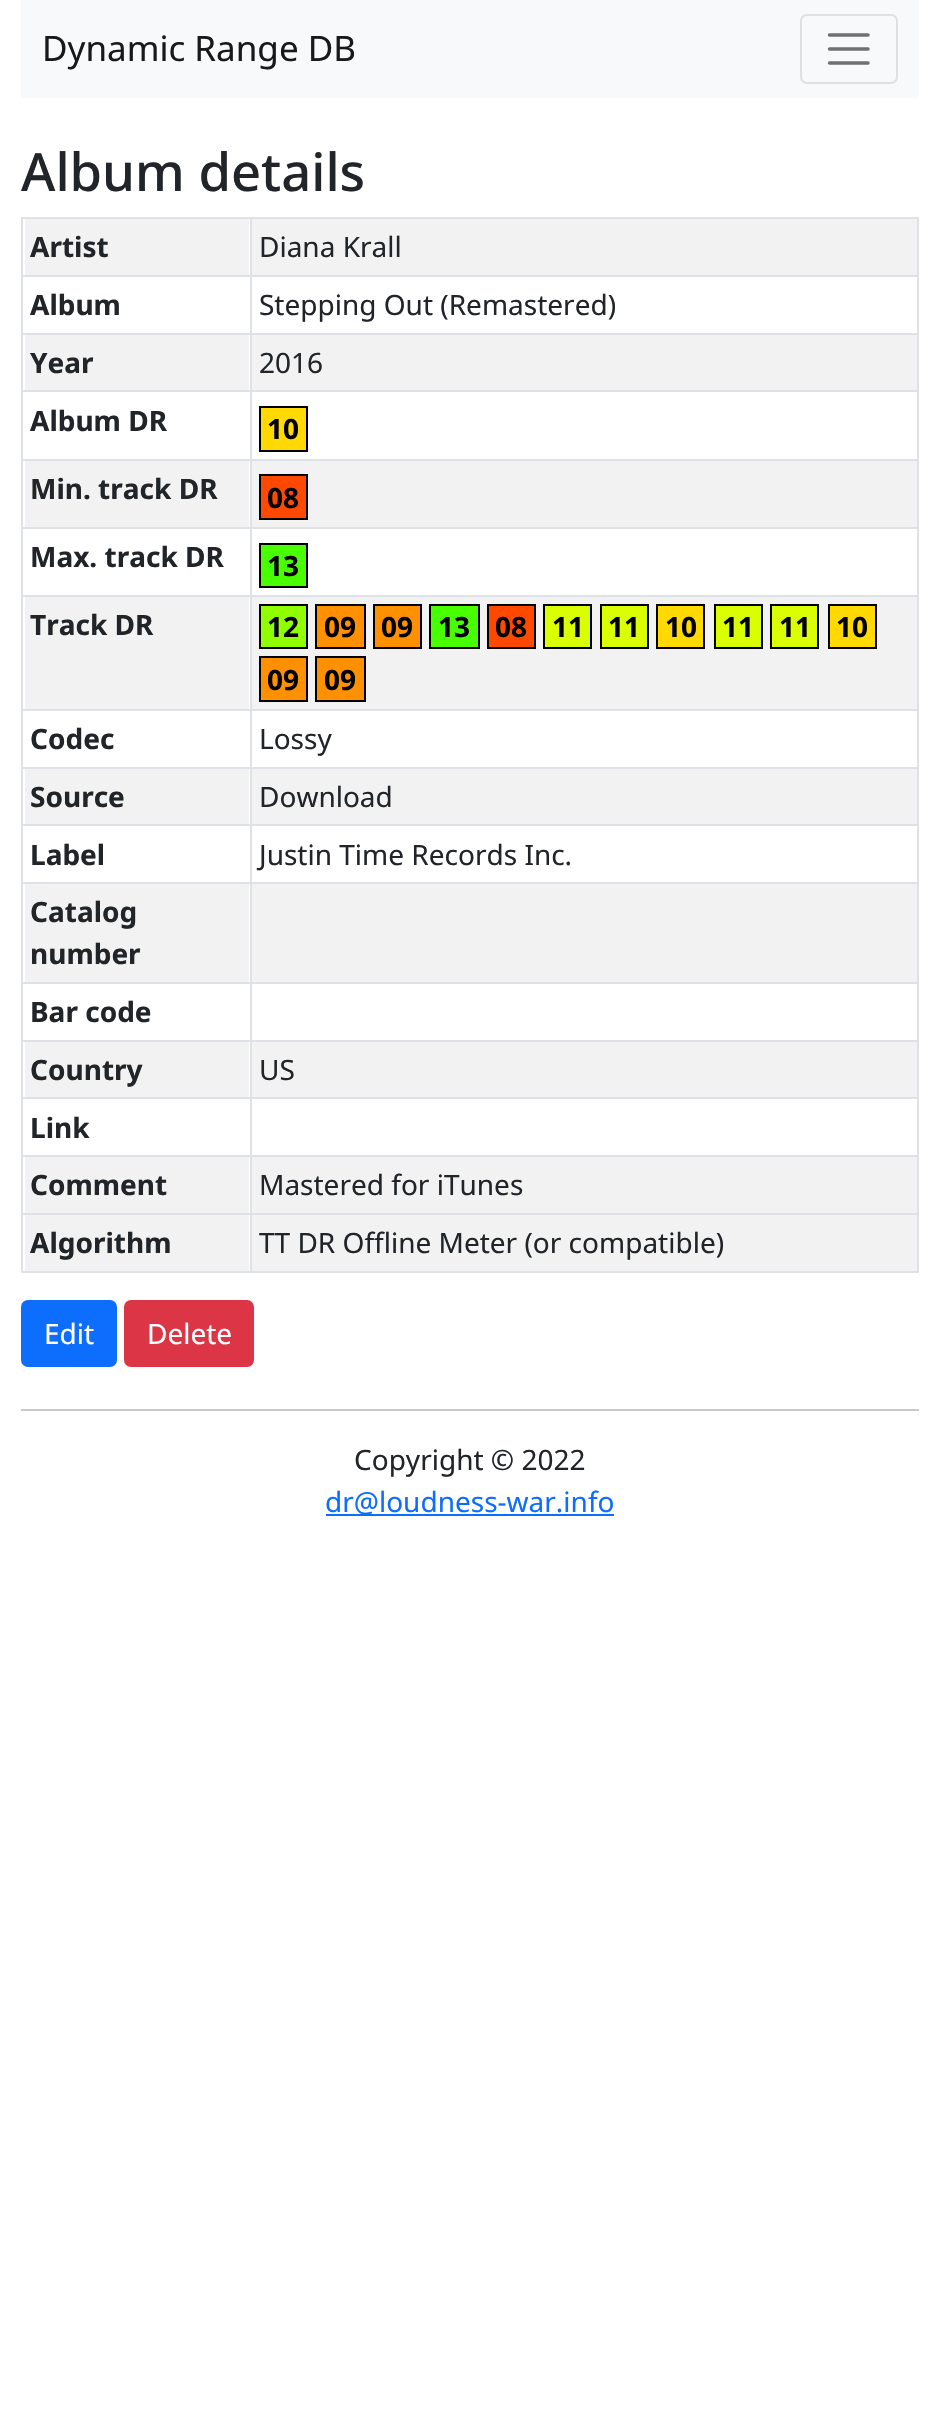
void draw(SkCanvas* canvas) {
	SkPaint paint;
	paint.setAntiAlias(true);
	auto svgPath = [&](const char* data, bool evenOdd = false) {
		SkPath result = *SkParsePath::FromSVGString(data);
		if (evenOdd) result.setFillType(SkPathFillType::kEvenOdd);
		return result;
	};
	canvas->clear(0xffffffff);
	paint.setColor(0xfff8f9fa);
	canvas->drawRect(SkRect::MakeXYWH(21, 0, 898, 98), paint);
	SkFont f1(fontMgr->matchFamilyStyle("Noto Sans", SkFontStyle::Normal()), 35);
	f1.setSubpixel(true);
	paint.setColor(0xff191919);
	canvas->drawString("Dynamic Range DB", 42, 61, f1, paint);
	paint.setStroke(true);
	paint.setStrokeWidth(2);
	paint.setColor(0xffdfe0e1);
	canvas->drawRoundRect(SkRect::MakeXYWH(801, 15, 96, 68), 6, 6, paint);
	paint.setStrokeWidth(3.5);
	paint.setStrokeCap(SkPaint::kRound_Cap);
	paint.setColor(0xff707071);
	canvas->drawPath(svgPath("M829.5 35H868M829.5 49H868M829.5 63H868"), paint);
	SkFont f2(fontMgr->matchFamilyStyle("Noto Sans", SkFontStyle(500, SkFontStyle::kNormal_Width, SkFontStyle::kUpright_Slant)), 52.5);
	f2.setSubpixel(true);
	paint.setStroke(false);
	paint.setColor(0xff212529);
	canvas->drawString("Album details", 21, 191, f2, paint);
	paint.setColor(0xffdee2e6);
	canvas->drawRect(SkRect::MakeXYWH(21, 217, 898, 2), paint);
	paint.setColor(0xfff2f2f2);
	canvas->drawRect(SkRect::MakeXYWH(25, 219, 224, 56), paint);
	SkFont f3(fontMgr->matchFamilyStyle("Noto Sans", SkFontStyle::Bold()), 28);
	f3.setSubpixel(true);
	paint.setColor(0xff212529);
	canvas->drawString("Artist", 30, 257, f3, paint);
	paint.setColor(0xfff2f2f2);
	canvas->drawRect(SkRect::MakeXYWH(252, 219, 665, 56), paint);
	SkFont f4(fontMgr->matchFamilyStyle("Noto Sans", SkFontStyle::Normal()), 28);
	f4.setSubpixel(true);
	paint.setColor(0xff212529);
	canvas->drawString("Diana Krall", 259, 257, f4, paint);
	paint.setColor(0xffdee2e6);
	canvas->drawRect(SkRect::MakeXYWH(21, 275, 898, 2), paint);
	paint.setColor(0xff212529);
	canvas->drawString("Album", 30, 315, f3, paint);
	canvas->drawString("Stepping Out (Remastered)", 259, 315, f4, paint);
	paint.setColor(0xffdee2e6);
	canvas->drawRect(SkRect::MakeXYWH(21, 333, 898, 2), paint);
	paint.setColor(0xfff2f2f2);
	canvas->drawRect(SkRect::MakeXYWH(25, 335, 224, 55), paint);
	paint.setColor(0xff212529);
	canvas->drawString("Year", 30, 373, f3, paint);
	paint.setColor(0xfff2f2f2);
	canvas->drawRect(SkRect::MakeXYWH(252, 335, 665, 55), paint);
	paint.setColor(0xff212529);
	canvas->drawString("2016", 259, 373, f4, paint);
	paint.setColor(0xffdee2e6);
	canvas->drawRect(SkRect::MakeXYWH(21, 390, 898, 2), paint);
	paint.setColor(0xff212529);
	canvas->drawString("Album DR", 30, 431, f3, paint);
	paint.setColor(0xffffd900);
	canvas->drawRect(SkRect::MakeXYWH(260, 407, 47, 44), paint);
	paint.setStroke(true);
	paint.setStrokeWidth(2);
	paint.setStrokeCap(SkPaint::kButt_Cap);
	paint.setColor(0xff000000);
	canvas->drawRect(SkRect::MakeXYWH(260, 407, 47, 44), paint);
	paint.setStroke(false);
	canvas->drawString("10", 267, 439, f3, paint);
	paint.setColor(0xffdee2e6);
	canvas->drawRect(SkRect::MakeXYWH(21, 459, 898, 2), paint);
	paint.setColor(0xfff2f2f2);
	canvas->drawRect(SkRect::MakeXYWH(25, 461, 224, 66), paint);
	paint.setColor(0xff212529);
	canvas->drawString("Min. track DR", 30, 499, f3, paint);
	paint.setColor(0xfff2f2f2);
	canvas->drawRect(SkRect::MakeXYWH(252, 461, 665, 66), paint);
	paint.setColor(0xffff4800);
	canvas->drawRect(SkRect::MakeXYWH(260, 475, 47, 44), paint);
	paint.setStroke(true);
	paint.setColor(0xff000000);
	canvas->drawRect(SkRect::MakeXYWH(260, 475, 47, 44), paint);
	paint.setStroke(false);
	canvas->drawString("08", 267, 508, f3, paint);
	paint.setColor(0xffdee2e6);
	canvas->drawRect(SkRect::MakeXYWH(21, 527, 898, 2), paint);
	paint.setColor(0xff212529);
	canvas->drawString("Max. track DR", 30, 567, f3, paint);
	paint.setColor(0xff48ff00);
	canvas->drawRect(SkRect::MakeXYWH(260, 544, 47, 43), paint);
	paint.setStroke(true);
	paint.setColor(0xff000000);
	canvas->drawRect(SkRect::MakeXYWH(260, 544, 47, 43), paint);
	paint.setStroke(false);
	canvas->drawString("13", 267, 576, f3, paint);
	paint.setColor(0xffdee2e6);
	canvas->drawRect(SkRect::MakeXYWH(21, 595, 898, 2), paint);
	paint.setColor(0xfff2f2f2);
	canvas->drawRect(SkRect::MakeXYWH(25, 597, 224, 112), paint);
	paint.setColor(0xff212529);
	canvas->drawString("Track DR", 30, 635, f3, paint);
	paint.setColor(0xfff2f2f2);
	canvas->drawRect(SkRect::MakeXYWH(252, 597, 665, 112), paint);
	paint.setColor(0xff90ff00);
	canvas->drawRect(SkRect::MakeXYWH(260, 605, 47, 43), paint);
	paint.setStroke(true);
	paint.setColor(0xff000000);
	canvas->drawRect(SkRect::MakeXYWH(260, 605, 47, 43), paint);
	paint.setStroke(false);
	canvas->drawString("12", 267, 637, f3, paint);
	paint.setColor(0xffff9100);
	canvas->drawRect(SkRect::MakeXYWH(316, 605, 49, 43), paint);
	paint.setStroke(true);
	paint.setColor(0xff000000);
	canvas->drawRect(SkRect::MakeXYWH(316, 605, 49, 43), paint);
	paint.setStroke(false);
	canvas->drawString("09", 324, 637, f3, paint);
	paint.setColor(0xffff9100);
	canvas->drawRect(SkRect::MakeXYWH(374, 605, 47, 43), paint);
	paint.setStroke(true);
	paint.setColor(0xff000000);
	canvas->drawRect(SkRect::MakeXYWH(374, 605, 47, 43), paint);
	paint.setStroke(false);
	canvas->drawString("09", 381, 637, f3, paint);
	paint.setColor(0xff48ff00);
	canvas->drawRect(SkRect::MakeXYWH(430, 605, 49, 43), paint);
	paint.setStroke(true);
	paint.setColor(0xff000000);
	canvas->drawRect(SkRect::MakeXYWH(430, 605, 49, 43), paint);
	paint.setStroke(false);
	canvas->drawString("13", 438, 637, f3, paint);
	paint.setColor(0xffff4800);
	canvas->drawRect(SkRect::MakeXYWH(488, 605, 47, 43), paint);
	paint.setStroke(true);
	paint.setColor(0xff000000);
	canvas->drawRect(SkRect::MakeXYWH(488, 605, 47, 43), paint);
	paint.setStroke(false);
	canvas->drawString("08", 495, 637, f3, paint);
	paint.setColor(0xffd9ff00);
	canvas->drawRect(SkRect::MakeXYWH(544, 605, 47, 43), paint);
	paint.setStroke(true);
	paint.setColor(0xff000000);
	canvas->drawRect(SkRect::MakeXYWH(544, 605, 47, 43), paint);
	paint.setStroke(false);
	canvas->drawString("11", 552, 637, f3, paint);
	paint.setColor(0xffd9ff00);
	canvas->drawRect(SkRect::MakeXYWH(601, 605, 47, 43), paint);
	paint.setStroke(true);
	paint.setColor(0xff000000);
	canvas->drawRect(SkRect::MakeXYWH(601, 605, 47, 43), paint);
	paint.setStroke(false);
	canvas->drawString("11", 608, 637, f3, paint);
	paint.setColor(0xffffd900);
	canvas->drawRect(SkRect::MakeXYWH(657, 605, 47, 43), paint);
	paint.setStroke(true);
	paint.setColor(0xff000000);
	canvas->drawRect(SkRect::MakeXYWH(657, 605, 47, 43), paint);
	paint.setStroke(false);
	canvas->drawString("10", 665, 637, f3, paint);
	paint.setColor(0xffd9ff00);
	canvas->drawRect(SkRect::MakeXYWH(715, 605, 47, 43), paint);
	paint.setStroke(true);
	paint.setColor(0xff000000);
	canvas->drawRect(SkRect::MakeXYWH(715, 605, 47, 43), paint);
	paint.setStroke(false);
	canvas->drawString("11", 722, 637, f3, paint);
	paint.setColor(0xffd9ff00);
	canvas->drawRect(SkRect::MakeXYWH(771, 605, 47, 43), paint);
	paint.setStroke(true);
	paint.setColor(0xff000000);
	canvas->drawRect(SkRect::MakeXYWH(771, 605, 47, 43), paint);
	paint.setStroke(false);
	canvas->drawString("11", 779, 637, f3, paint);
	paint.setColor(0xffffd900);
	canvas->drawRect(SkRect::MakeXYWH(829, 605, 47, 43), paint);
	paint.setStroke(true);
	paint.setColor(0xff000000);
	canvas->drawRect(SkRect::MakeXYWH(829, 605, 47, 43), paint);
	paint.setStroke(false);
	canvas->drawString("10", 836, 637, f3, paint);
	paint.setColor(0xffff9100);
	canvas->drawRect(SkRect::MakeXYWH(260, 657, 47, 44), paint);
	paint.setStroke(true);
	paint.setColor(0xff000000);
	canvas->drawRect(SkRect::MakeXYWH(260, 657, 47, 44), paint);
	paint.setStroke(false);
	canvas->drawString("09", 267, 690, f3, paint);
	paint.setColor(0xffff9100);
	canvas->drawRect(SkRect::MakeXYWH(316, 657, 49, 44), paint);
	paint.setStroke(true);
	paint.setColor(0xff000000);
	canvas->drawRect(SkRect::MakeXYWH(316, 657, 49, 44), paint);
	paint.setStroke(false);
	canvas->drawString("09", 324, 690, f3, paint);
	paint.setColor(0xffdee2e6);
	canvas->drawRect(SkRect::MakeXYWH(21, 709, 898, 2), paint);
	paint.setColor(0xff212529);
	canvas->drawString("Codec", 30, 749, f3, paint);
	canvas->drawString("Lossy", 259, 749, f4, paint);
	paint.setColor(0xffdee2e6);
	canvas->drawRect(SkRect::MakeXYWH(21, 767, 898, 2), paint);
	paint.setColor(0xfff2f2f2);
	canvas->drawRect(SkRect::MakeXYWH(25, 769, 224, 55), paint);
	paint.setColor(0xff212529);
	canvas->drawString("Source", 30, 807, f3, paint);
	paint.setColor(0xfff2f2f2);
	canvas->drawRect(SkRect::MakeXYWH(252, 769, 665, 55), paint);
	paint.setColor(0xff212529);
	canvas->drawString("Download", 259, 807, f4, paint);
	paint.setColor(0xffdee2e6);
	canvas->drawRect(SkRect::MakeXYWH(21, 824, 898, 2), paint);
	paint.setColor(0xff212529);
	canvas->drawString("Label", 30, 865, f3, paint);
	canvas->drawString("Justin Time Records Inc.", 259, 865, f4, paint);
	paint.setColor(0xffdee2e6);
	canvas->drawRect(SkRect::MakeXYWH(21, 882, 898, 2), paint);
	paint.setColor(0xfff2f2f2);
	canvas->drawRect(SkRect::MakeXYWH(25, 884, 224, 98), paint);
	paint.setColor(0xff212529);
	canvas->drawString("Catalog", 30, 922, f3, paint);
	canvas->drawString("number", 30, 964, f3, paint);
	paint.setColor(0xfff2f2f2);
	canvas->drawRect(SkRect::MakeXYWH(252, 884, 665, 98), paint);
	paint.setColor(0xffdee2e6);
	canvas->drawRect(SkRect::MakeXYWH(21, 982, 898, 2), paint);
	paint.setColor(0xff212529);
	canvas->drawString("Bar code", 30, 1022, f3, paint);
	paint.setColor(0xffdee2e6);
	canvas->drawRect(SkRect::MakeXYWH(21, 1040, 898, 2), paint);
	paint.setColor(0xfff2f2f2);
	canvas->drawRect(SkRect::MakeXYWH(25, 1042, 224, 55), paint);
	paint.setColor(0xff212529);
	canvas->drawString("Country", 30, 1080, f3, paint);
	paint.setColor(0xfff2f2f2);
	canvas->drawRect(SkRect::MakeXYWH(252, 1042, 665, 55), paint);
	paint.setColor(0xff212529);
	canvas->drawString("US", 259, 1080, f4, paint);
	paint.setColor(0xffdee2e6);
	canvas->drawRect(SkRect::MakeXYWH(21, 1097, 898, 2), paint);
	paint.setColor(0xff212529);
	canvas->drawString("Link", 30, 1138, f3, paint);
	paint.setColor(0xffdee2e6);
	canvas->drawRect(SkRect::MakeXYWH(21, 1155, 898, 2), paint);
	paint.setColor(0xfff2f2f2);
	canvas->drawRect(SkRect::MakeXYWH(25, 1157, 224, 56), paint);
	paint.setColor(0xff212529);
	canvas->drawString("Comment", 30, 1195, f3, paint);
	paint.setColor(0xfff2f2f2);
	canvas->drawRect(SkRect::MakeXYWH(252, 1157, 665, 56), paint);
	paint.setColor(0xff212529);
	canvas->drawString("Mastered for iTunes", 259, 1195, f4, paint);
	paint.setColor(0xffdee2e6);
	canvas->drawRect(SkRect::MakeXYWH(21, 1213, 898, 2), paint);
	canvas->drawRect(SkRect::MakeXYWH(21, 1271, 898, 2), paint);
	paint.setColor(0xfff2f2f2);
	canvas->drawRect(SkRect::MakeXYWH(25, 1215, 224, 56), paint);
	paint.setColor(0xffdee2e6);
	canvas->drawRect(SkRect::MakeXYWH(21, 217, 2, 1055), paint);
	paint.setColor(0xff212529);
	canvas->drawString("Algorithm", 30, 1253, f3, paint);
	paint.setColor(0xfff2f2f2);
	canvas->drawRect(SkRect::MakeXYWH(252, 1215, 665, 56), paint);
	paint.setColor(0xffdee2e6);
	canvas->drawRect(SkRect::MakeXYWH(917, 217, 2, 1055), paint);
	canvas->drawRect(SkRect::MakeXYWH(250, 217, 2, 1055), paint);
	paint.setColor(0xff212529);
	canvas->drawString("TT DR Offline Meter (or compatible)", 259, 1253, f4, paint);
	paint.setColor(0xff0d6efd);
	canvas->drawRoundRect(SkRect::MakeXYWH(22, 1301, 94, 65), 6, 6, paint);
	paint.setStroke(true);
	canvas->drawRoundRect(SkRect::MakeXYWH(22, 1301, 94, 65), 6, 6, paint);
	paint.setStroke(false);
	paint.setColor(0xffffffff);
	canvas->drawString("Edit", 44, 1344, f4, paint);
	paint.setColor(0xffdc3545);
	canvas->drawRoundRect(SkRect::MakeXYWH(125, 1301, 128, 65), 6, 6, paint);
	paint.setStroke(true);
	canvas->drawRoundRect(SkRect::MakeXYWH(125, 1301, 128, 65), 6, 6, paint);
	paint.setStroke(false);
	paint.setColor(0xffffffff);
	canvas->drawString("Delete", 147, 1344, f4, paint);
	paint.setColor(0xffc8c9ca);
	canvas->drawRect(SkRect::MakeXYWH(21, 1409, 898, 2), paint);
	paint.setColor(0xff212529);
	canvas->drawString("Copyright © 2022", 354, 1470, f4, paint);
	paint.setColor(0xff0d6efd);
	canvas->drawRect(SkRect::MakeXYWH(326, 1514, 288, 2), paint);
	canvas->drawString("dr@loudness-war.info", 325, 1512, f4, paint);
}
